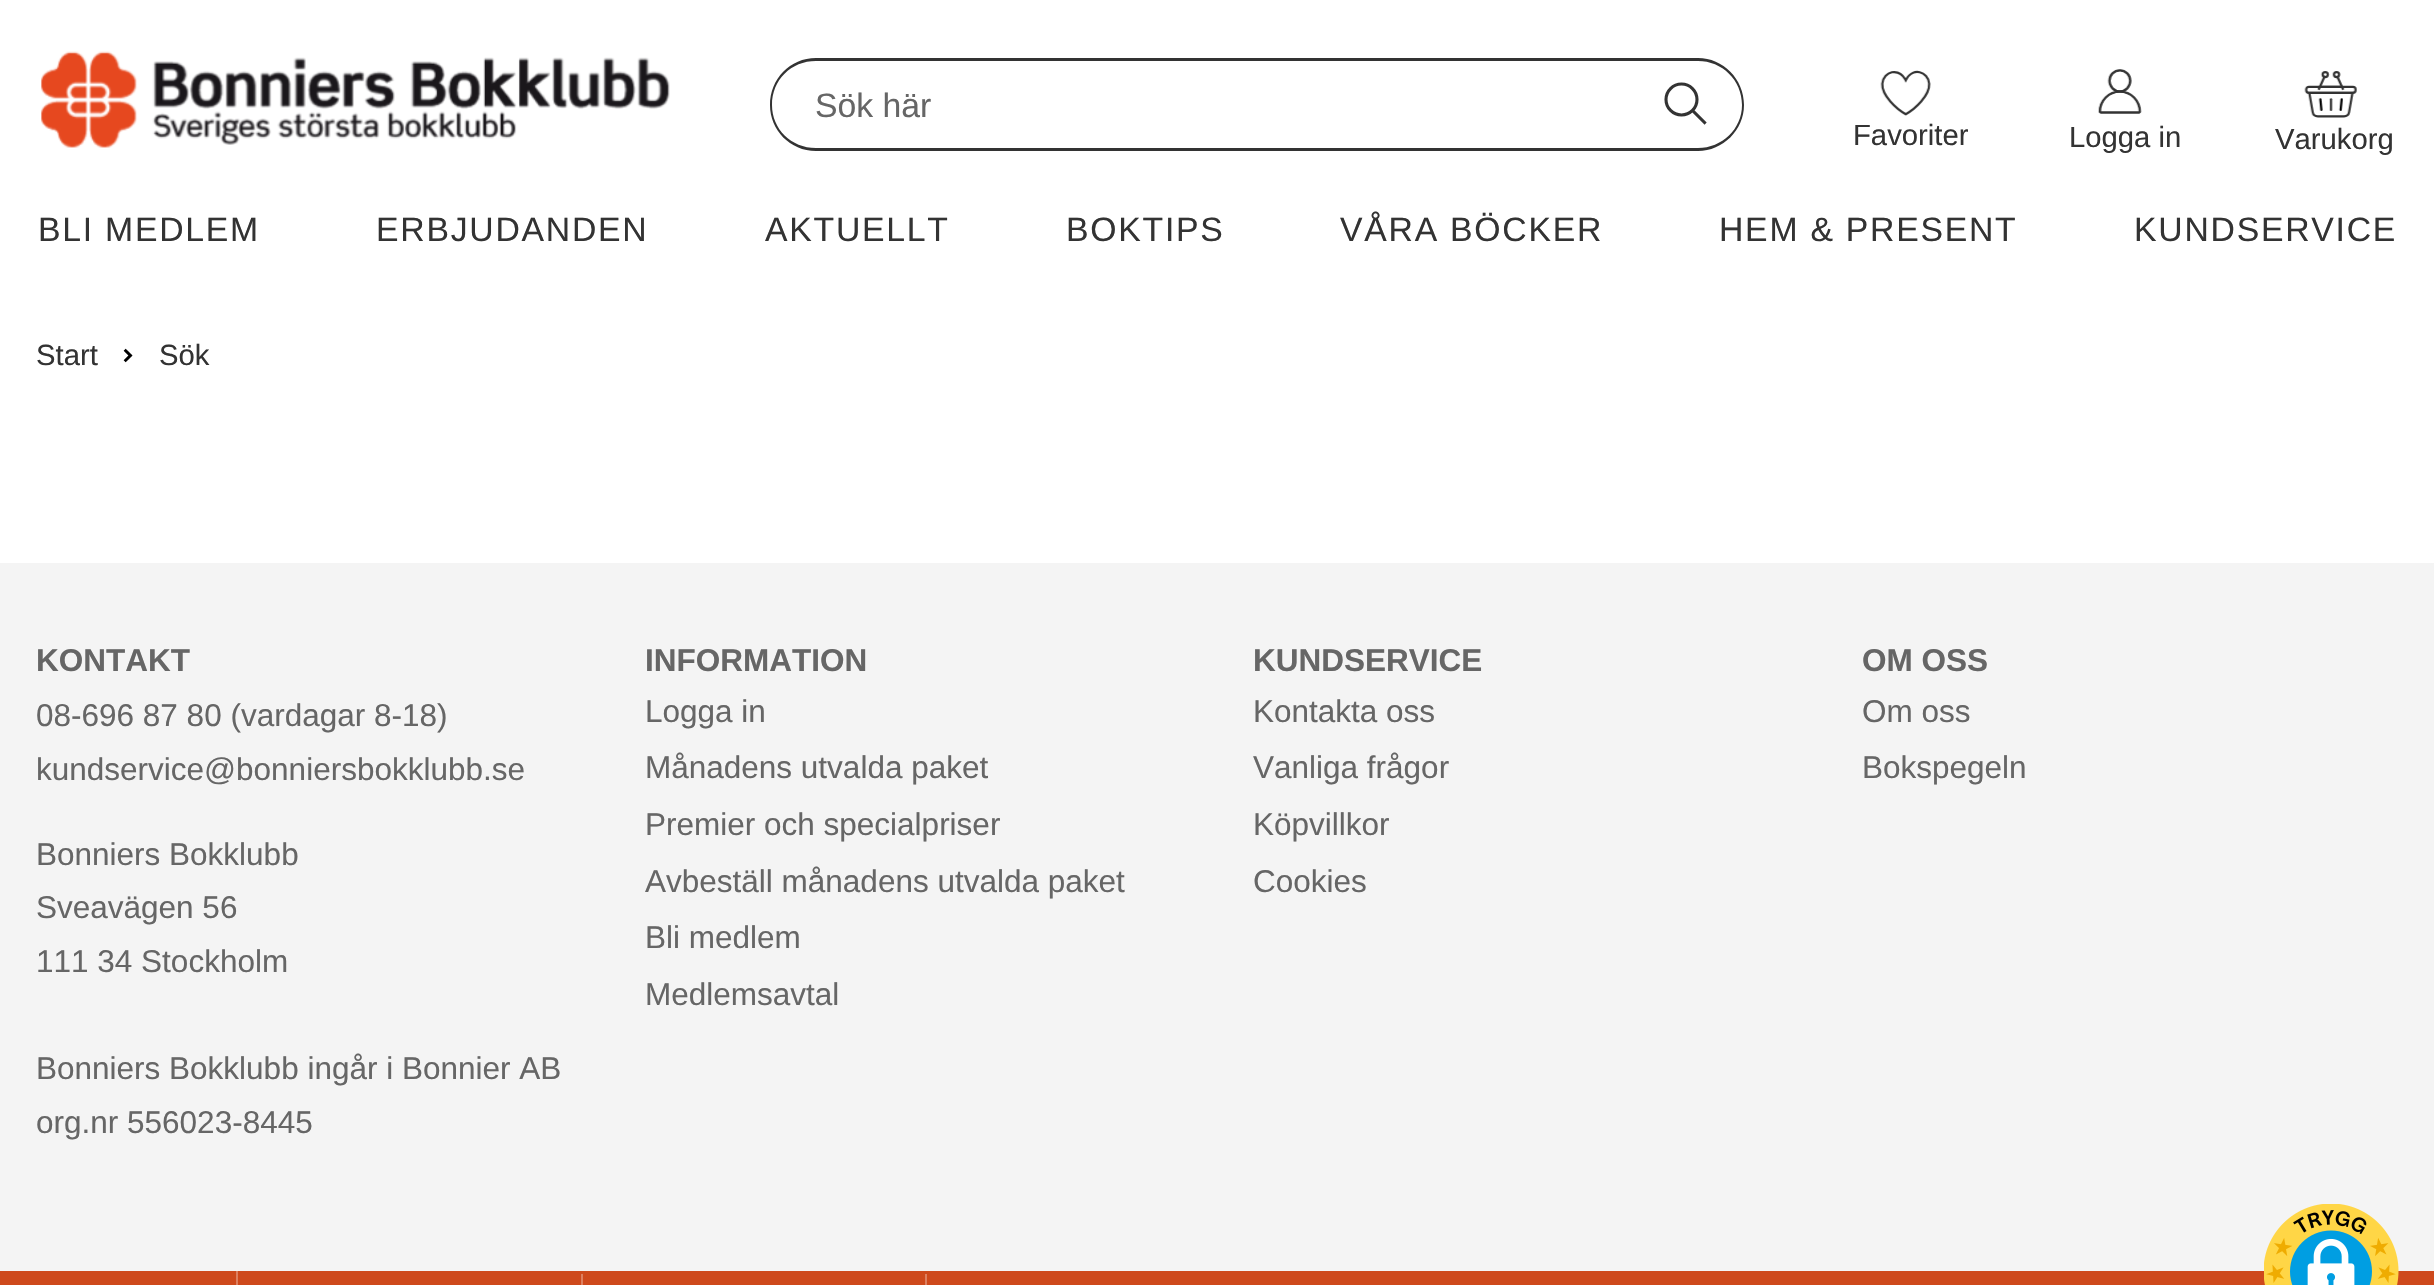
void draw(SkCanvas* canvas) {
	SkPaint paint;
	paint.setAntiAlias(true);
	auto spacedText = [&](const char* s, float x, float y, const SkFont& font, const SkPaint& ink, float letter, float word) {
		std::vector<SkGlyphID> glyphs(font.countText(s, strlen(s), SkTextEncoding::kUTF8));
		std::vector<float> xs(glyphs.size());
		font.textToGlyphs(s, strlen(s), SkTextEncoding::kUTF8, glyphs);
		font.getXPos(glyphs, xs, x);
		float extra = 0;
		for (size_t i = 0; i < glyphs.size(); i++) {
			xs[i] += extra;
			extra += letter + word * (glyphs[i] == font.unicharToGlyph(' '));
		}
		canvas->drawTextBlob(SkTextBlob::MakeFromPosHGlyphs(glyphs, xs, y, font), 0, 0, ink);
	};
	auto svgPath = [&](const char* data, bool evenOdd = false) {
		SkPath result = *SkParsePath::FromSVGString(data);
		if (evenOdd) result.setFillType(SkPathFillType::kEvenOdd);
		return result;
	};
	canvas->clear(0xffffffff);
	canvas->drawImageRect(SkImages::DeferredFromEncodedData(SkData::MakeFromFileName("img1.png")), SkRect::MakeXYWH(41, 51, 629, 97), SkSamplingOptions());
	paint.setColor(0xff333333);
	canvas->drawPath(svgPath("M816 58H1647V151H816C790 151 770 130 770 105C770 79 790 58 816 58ZM816 61H1647V148H816C791 148 772 129 772 105C772 80 791 61 816 61Z", true), paint);
	SkFont f1(fontMgr->matchFamilyStyle("Liberation Sans", SkFontStyle::Normal()), 33.75);
	f1.setSubpixel(true);
	paint.setColor(0xff666666);
	canvas->drawString("Sök här", 815, 117, f1, paint);
	paint.setColor(0xff333333);
	canvas->drawPath(svgPath("M1647 58H1698C1723 58 1744 79 1744 105C1744 130 1723 151 1698 151H1647ZM1647 61H1698C1722 61 1742 80 1742 105C1742 129 1722 148 1698 148H1647Z", true), paint);
	paint.setStroke(true);
	paint.setStrokeWidth(3.1);
	paint.setStrokeCap(SkPaint::kSquare_Cap);
	canvas->drawPath(svgPath("M1704.5 122.5L1676.5 94.5"), paint);
	paint.setStroke(false);
	paint.setColor(0xffffffff);
	canvas->drawCircle(1681.5, 99.5, 15.5, paint);
	paint.setStroke(true);
	paint.setStrokeCap(SkPaint::kButt_Cap);
	paint.setColor(0xff333333);
	canvas->drawCircle(1681.5, 99.5, 15.5, paint);
	canvas->drawImageRect(SkImages::DeferredFromEncodedData(SkData::MakeFromFileName("img2.png")), SkRect::MakeXYWH(1880, 70, 51, 46), SkSamplingOptions());
	SkFont f2(fontMgr->matchFamilyStyle("Liberation Sans", SkFontStyle::Normal()), 29.25);
	f2.setSubpixel(true);
	paint.setStroke(false);
	canvas->drawString("Favoriter", 1853, 145, f2, paint);
	canvas->drawImageRect(SkImages::DeferredFromEncodedData(SkData::MakeFromFileName("img3.png")), SkRect::MakeXYWH(2098, 69, 44, 45), SkSamplingOptions());
	canvas->drawString("Logga in", 2069, 147, f2, paint);
	canvas->drawImageRect(SkImages::DeferredFromEncodedData(SkData::MakeFromFileName("img4.png")), SkRect::MakeXYWH(2304, 71, 53, 47), SkSamplingOptions());
	canvas->drawString("Varukorg", 2275, 149, f2, paint);
	spacedText("BLI MEDLEM", 38, 241, f1, paint, 1.75, 0);
	spacedText("ERBJUDANDEN", 376, 241, f1, paint, 1.75, 0);
	spacedText("AKTUELLT", 765, 241, f1, paint, 1.75, 0);
	spacedText("BOKTIPS", 1066, 241, f1, paint, 1.75, 0);
	spacedText("VÅRA BÖCKER", 1340, 241, f1, paint, 1.75, 0);
	spacedText("HEM & PRESENT", 1719, 241, f1, paint, 1.75, 0);
	spacedText("KUNDSERVICE", 2134, 241, f1, paint, 1.75, 0);
	canvas->drawString("Start", 36, 365, f2, paint);
	canvas->drawImageRect(SkImages::DeferredFromEncodedData(SkData::MakeFromFileName("img5.png")), SkRect::MakeXYWH(123, 348, 10, 15), SkSamplingOptions());
	canvas->drawString("Sök", 159, 365, f2, paint);
	paint.setColor(0xfff4f4f4);
	canvas->drawRect(SkRect::MakeXYWH(0, 563, 2434, 708), paint);
	SkFont f3(fontMgr->matchFamilyStyle("Liberation Sans", SkFontStyle::Bold()), 31.5);
	f3.setSubpixel(true);
	paint.setColor(0xff666666);
	canvas->drawString("KONTAKT", 36, 671, f3, paint);
	SkFont f4(fontMgr->matchFamilyStyle("Liberation Sans", SkFontStyle::Normal()), 31.5);
	f4.setSubpixel(true);
	canvas->drawString("08-696 87 80 (vardagar 8-18)", 36, 726, f4, paint);
	canvas->drawString("kundservice@bonniersbokklubb.se", 36, 780, f4, paint);
	canvas->drawString("Bonniers Bokklubb", 36, 865, f4, paint);
	canvas->drawString("Sveavägen 56", 36, 918, f4, paint);
	canvas->drawString("111 34 Stockholm", 36, 972, f4, paint);
	canvas->drawString("Bonniers Bokklubb ingår i Bonnier AB", 36, 1079, f4, paint);
	canvas->drawString("org.nr 556023-8445", 36, 1133, f4, paint);
	canvas->drawString("INFORMATION", 645, 671, f3, paint);
	canvas->drawString("Logga in", 645, 722, f4, paint);
	canvas->drawString("Månadens utvalda paket", 645, 778, f4, paint);
	canvas->drawString("Premier och specialpriser", 645, 835, f4, paint);
	canvas->drawString("Avbeställ månadens utvalda paket", 645, 892, f4, paint);
	canvas->drawString("Bli medlem", 645, 948, f4, paint);
	canvas->drawString("Medlemsavtal", 645, 1005, f4, paint);
	canvas->drawString("KUNDSERVICE", 1253, 671, f3, paint);
	canvas->drawString("Kontakta oss", 1253, 722, f4, paint);
	canvas->drawString("Vanliga frågor", 1253, 778, f4, paint);
	canvas->drawString("Köpvillkor", 1253, 835, f4, paint);
	canvas->drawString("Cookies", 1253, 892, f4, paint);
	canvas->drawString("OM OSS", 1862, 671, f3, paint);
	canvas->drawString("Om oss", 1862, 722, f4, paint);
	canvas->drawString("Bokspegeln", 1862, 778, f4, paint);
	paint.setColor(0xffce491c);
	canvas->drawRect(SkRect::MakeXYWH(0, 1271, 2434, 14), paint);
	paint.setColor(0xffdd8060);
	canvas->drawRect(SkRect::MakeXYWH(236, 1271, 2, 14), paint);
	canvas->drawRect(SkRect::MakeXYWH(925, 1274, 2, 11), paint);
	canvas->drawRect(SkRect::MakeXYWH(581, 1274, 2, 11), paint);
	canvas->drawImageRect(SkImages::DeferredFromEncodedData(SkData::MakeFromFileName("img6.png")), SkRect::MakeXYWH(2264, 1204, 135, 81), SkSamplingOptions());
}
